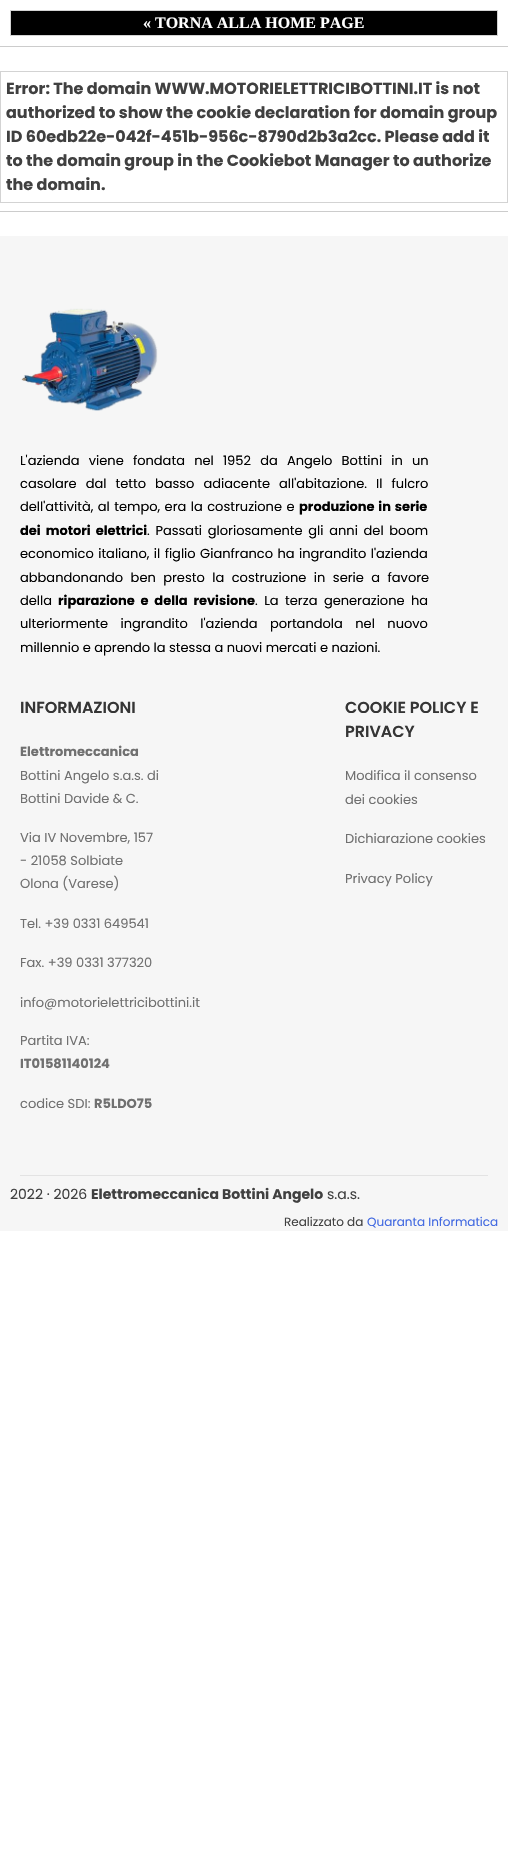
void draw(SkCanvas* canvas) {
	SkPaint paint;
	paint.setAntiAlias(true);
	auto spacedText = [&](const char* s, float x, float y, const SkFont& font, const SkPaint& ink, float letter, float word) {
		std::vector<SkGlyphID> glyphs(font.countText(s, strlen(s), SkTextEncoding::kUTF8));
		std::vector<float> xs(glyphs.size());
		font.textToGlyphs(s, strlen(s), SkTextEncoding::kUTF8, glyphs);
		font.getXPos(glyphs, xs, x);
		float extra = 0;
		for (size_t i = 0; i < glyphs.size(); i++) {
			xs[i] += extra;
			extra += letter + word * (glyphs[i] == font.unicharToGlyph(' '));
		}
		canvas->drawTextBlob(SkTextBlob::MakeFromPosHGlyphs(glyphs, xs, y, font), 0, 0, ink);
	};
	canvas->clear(0xffffffff);
	paint.setColor(0xff000000);
	canvas->drawRect(SkRect::MakeXYWH(10.5, 10.5, 487, 25), paint);
	paint.setStroke(true);
	paint.setStrokeWidth(1);
	paint.setColor(0xffd3d3d3);
	canvas->drawRect(SkRect::MakeXYWH(10.5, 10.5, 487, 25), paint);
	SkFont f1(fontMgr->matchFamilyStyle("Liberation Serif", SkFontStyle::Bold()), 16);
	f1.setSubpixel(true);
	paint.setStroke(false);
	paint.setColor(0xffffffff);
	canvas->drawString("« TORNA ALLA HOME PAGE", 143, 28, f1, paint);
	paint.setColor(0xffcccccc);
	canvas->drawRect(SkRect::MakeXYWH(0, 46, 508, 1), paint);
	paint.setStroke(true);
	paint.setColor(0xffd3d3d3);
	canvas->drawRect(SkRect::MakeXYWH(0.5, 71.5, 507, 131), paint);
	SkFont f2(fontMgr->matchFamilyStyle("Poppins", SkFontStyle::Bold()), 16);
	f2.setSubpixel(true);
	paint.setStroke(false);
	paint.setColor(0xff404040);
	canvas->drawString("Error: The domain WWW.MOTORIELETTRICIBOTTINI.IT is not", 6, 94, f2, paint);
	canvas->drawString("authorized to show the cookie declaration for domain group", 6, 118, f2, paint);
	canvas->drawString("ID 60edb22e-042f-451b-956c-8790d2b3a2cc. Please add it", 6, 142, f2, paint);
	canvas->drawString("to the domain group in the Cookiebot Manager to authorize", 6, 166, f2, paint);
	canvas->drawString("the domain.", 6, 190, f2, paint);
	paint.setColor(0xffcccccc);
	canvas->drawRect(SkRect::MakeXYWH(0, 211, 508, 1), paint);
	paint.setColor(0xfff6f6f6);
	canvas->drawRect(SkRect::MakeXYWH(0, 236, 508, 995), paint);
	paint.setColor(0xffe3e3e3);
	canvas->drawRect(SkRect::MakeXYWH(20, 1175, 468, 1), paint);
	canvas->drawImageRect(SkImages::DeferredFromEncodedData(SkData::MakeFromFileName("img1.png")), SkRect::MakeXYWH(21, 308, 137, 103), SkSamplingOptions());
	SkFont f3(fontMgr->matchFamilyStyle("Poppins", SkFontStyle::Normal()), 13);
	f3.setSubpixel(true);
	paint.setColor(0xff000000);
	spacedText("L'azienda viene fondata nel 1952 da Angelo Bottini in un", 20, 465, f3, paint, 0, 5.75);
	spacedText("casolare dal tetto basso adiacente all'abitazione. Il fulcro", 20, 488, f3, paint, 0, 5.5);
	spacedText("dell'attività, al tempo, era la costruzione e", 20, 511, f3, paint, 0, 1);
	SkFont f4(fontMgr->matchFamilyStyle("Poppins", SkFontStyle::Bold()), 13);
	f4.setSubpixel(true);
	spacedText("produzione in serie", 299, 511, f4, paint, 0, 1);
	spacedText("dei motori elettrici", 20, 535, f4, paint, 0, 2.25);
	spacedText(". Passati gloriosamente gli anni del boom", 147, 535, f3, paint, 0, 2.25);
	spacedText("economico italiano, il figlio Gianfranco ha ingrandito l'azienda", 20, 558, f3, paint, 0, 1);
	spacedText("abbandonando ben presto la costruzione in serie a favore", 20, 582, f3, paint, 0, 4);
	canvas->drawString("della", 20, 605, f3, paint);
	spacedText("riparazione e della revisione", 58, 605, f4, paint, 0, 3);
	spacedText(". La terza generazione ha", 255, 605, f3, paint, 0, 3);
	spacedText("ulteriormente ingrandito l'azienda portandola nel nuovo", 20, 628, f3, paint, 0, 9);
	canvas->drawString("millennio e aprendo la stessa a nuovi mercati e nazioni.", 20, 652, f3, paint);
	SkFont f5(fontMgr->matchFamilyStyle("Poppins", SkFontStyle(600, SkFontStyle::kNormal_Width, SkFontStyle::kUpright_Slant)), 16);
	f5.setSubpixel(true);
	paint.setColor(0xff353535);
	canvas->drawString("INFORMAZIONI", 20, 713, f5, paint);
	paint.setColor(0xff707070);
	canvas->drawString("Elettromeccanica", 20, 756, f4, paint);
	canvas->drawString("Bottini Angelo s.a.s. di", 20, 780, f3, paint);
	canvas->drawString("Bottini Davide & C.", 20, 803, f3, paint);
	canvas->drawString("Via IV Novembre, 157", 20, 842, f3, paint);
	canvas->drawString("- 21058 Solbiate", 20, 865, f3, paint);
	canvas->drawString("Olona (Varese)", 20, 888, f3, paint);
	canvas->drawString("Tel. +39 0331 649541", 20, 928, f3, paint);
	canvas->drawString("Fax. +39 0331 377320", 20, 967, f3, paint);
	canvas->drawString("info@motorielettricibottini.it", 20, 1007, f3, paint);
	canvas->drawString("Partita IVA:", 20, 1045, f3, paint);
	canvas->drawString("IT01581140124", 20, 1068, f4, paint);
	canvas->drawString("codice SDI:", 20, 1108, f3, paint);
	canvas->drawString("R5LDO75", 94, 1108, f4, paint);
	paint.setColor(0xff353535);
	canvas->drawString("COOKIE POLICY E", 345, 713, f5, paint);
	canvas->drawString("PRIVACY", 345, 737, f5, paint);
	paint.setColor(0xff707070);
	canvas->drawString("Modifica il consenso", 345, 780, f3, paint);
	canvas->drawString("dei cookies", 345, 804, f3, paint);
	canvas->drawString("Dichiarazione cookies", 345, 843, f3, paint);
	canvas->drawString("Privacy Policy", 345, 883, f3, paint);
	SkFont f6(fontMgr->matchFamilyStyle("Poppins", SkFontStyle::Normal()), 14);
	f6.setSubpixel(true);
	paint.setColor(0xff404040);
	canvas->drawString("2022 · 2026", 10, 1199, f6, paint);
	SkFont f7(fontMgr->matchFamilyStyle("Poppins", SkFontStyle::Bold()), 14);
	f7.setSubpixel(true);
	canvas->drawString("Elettromeccanica Bottini Angelo", 91, 1199, f7, paint);
	canvas->drawString("s.a.s.", 327, 1199, f6, paint);
	SkFont f8(fontMgr->matchFamilyStyle("Poppins", SkFontStyle::Normal()), 12);
	f8.setSubpixel(true);
	canvas->drawString("Realizzato da", 284, 1226, f8, paint);
	paint.setColor(0xff4169e1);
	canvas->drawString("Quaranta Informatica", 367, 1226, f8, paint);
}
